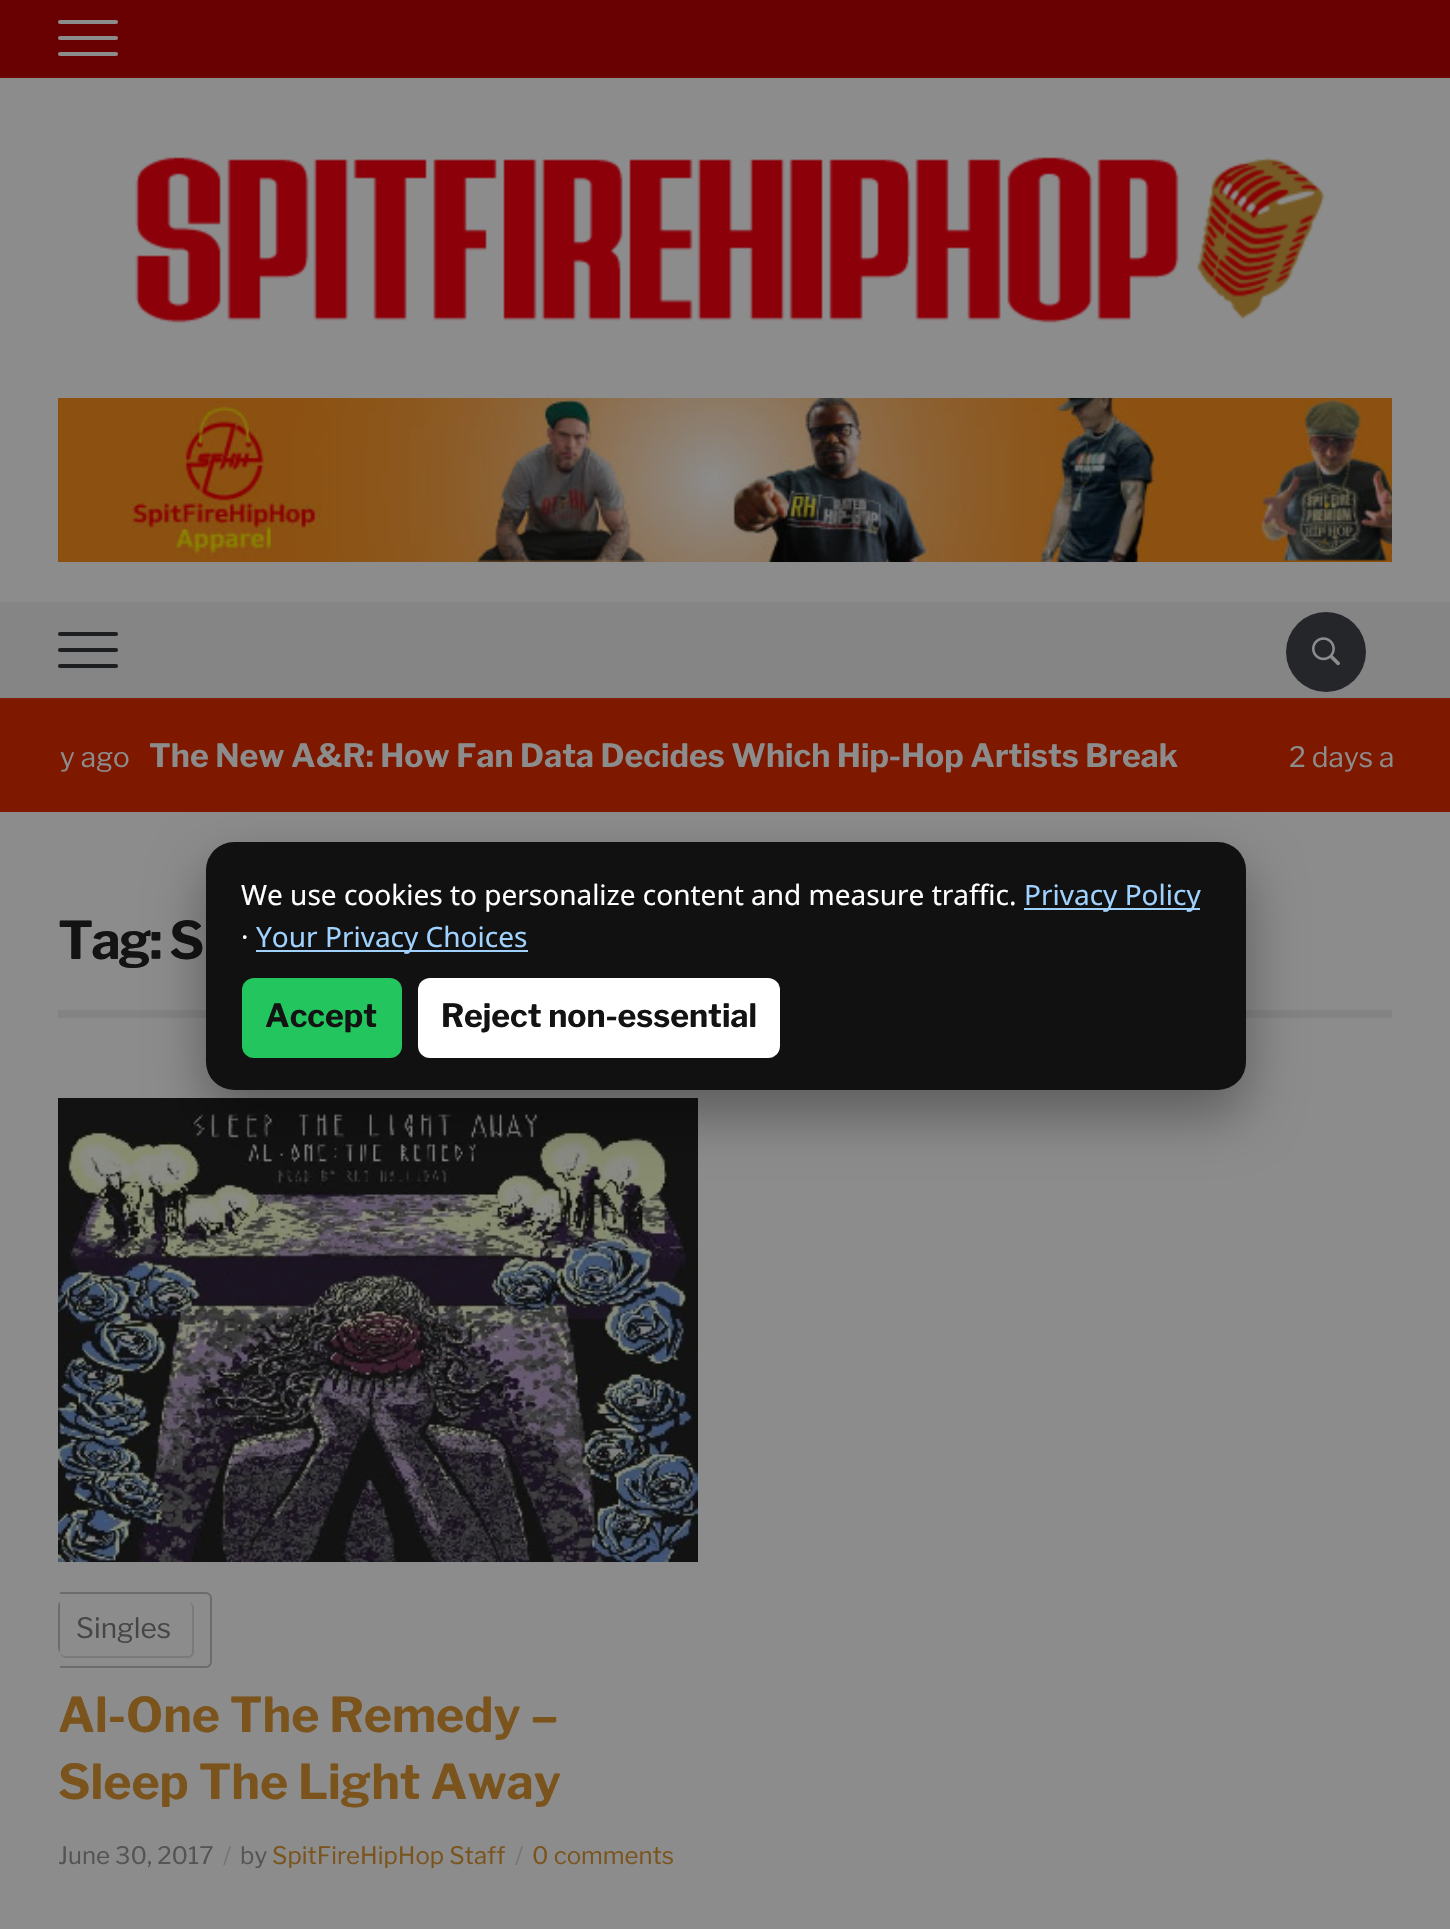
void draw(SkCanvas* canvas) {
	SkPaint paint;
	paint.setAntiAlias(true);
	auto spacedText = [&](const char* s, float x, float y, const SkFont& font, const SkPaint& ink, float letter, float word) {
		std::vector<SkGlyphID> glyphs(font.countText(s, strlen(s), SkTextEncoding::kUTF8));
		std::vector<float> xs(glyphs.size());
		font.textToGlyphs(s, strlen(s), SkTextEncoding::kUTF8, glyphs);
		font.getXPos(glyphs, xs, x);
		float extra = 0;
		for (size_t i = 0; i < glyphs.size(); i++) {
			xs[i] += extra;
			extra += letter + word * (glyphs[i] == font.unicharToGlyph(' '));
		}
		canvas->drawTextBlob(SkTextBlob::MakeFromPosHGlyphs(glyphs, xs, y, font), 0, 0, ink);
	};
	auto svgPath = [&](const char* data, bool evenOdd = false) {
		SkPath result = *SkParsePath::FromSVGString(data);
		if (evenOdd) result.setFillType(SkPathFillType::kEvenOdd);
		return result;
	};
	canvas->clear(0xff8c8c8c);
	paint.setColor(0xff690001);
	canvas->drawRect(SkRect::MakeXYWH(0, 0, 1450, 76), paint);
	paint.setColor(0xff6a0708);
	canvas->drawRect(SkRect::MakeXYWH(0, 76, 1450, 2), paint);
	paint.setColor(0xff8c8c8c);
	canvas->drawRoundRect(SkRect::MakeXYWH(58, 20, 60, 4), 2, 2, paint);
	canvas->drawRoundRect(SkRect::MakeXYWH(58, 36, 60, 4), 2, 2, paint);
	canvas->drawRoundRect(SkRect::MakeXYWH(58, 52, 60, 4), 2, 2, paint);
	canvas->drawImageRect(SkImages::DeferredFromEncodedData(SkData::MakeFromFileName("img1.png")), SkRect::MakeXYWH(135, 157, 1190, 166), SkSamplingOptions());
	canvas->drawImageRect(SkImages::DeferredFromEncodedData(SkData::MakeFromFileName("img2.png")), SkRect::MakeXYWH(58, 398, 1334, 164), SkSamplingOptions());
	paint.setColor(0xff858585);
	canvas->drawRect(SkRect::MakeXYWH(0, 602, 1450, 96), paint);
	paint.setColor(0xff1d1e1f);
	canvas->drawRoundRect(SkRect::MakeXYWH(58, 632, 60, 4), 2, 2, paint);
	canvas->drawRoundRect(SkRect::MakeXYWH(58, 648, 60, 4), 2, 2, paint);
	canvas->drawRoundRect(SkRect::MakeXYWH(58, 664, 60, 4), 2, 2, paint);
	paint.setColor(0xff24262a);
	canvas->drawCircle(1326, 652, 40, paint);
	canvas->drawImageRect(SkImages::DeferredFromEncodedData(SkData::MakeFromFileName("img3.png")), SkRect::MakeXYWH(1312, 637, 28, 29), SkSamplingOptions());
	paint.setColor(0xff7e1900);
	canvas->drawRect(SkRect::MakeXYWH(0, 700, 1450, 112), paint);
	paint.setColor(0xff7f1f07);
	canvas->drawRect(SkRect::MakeXYWH(0, 698, 1450, 2), paint);
	SkFont f1(fontMgr->matchFamilyStyle("Libre Franklin", SkFontStyle::Normal()), 28);
	f1.setSubpixel(true);
	paint.setColor(0xff8c8c8c);
	canvas->drawString("y ago", 60, 767, f1, paint);
	SkFont f2(fontMgr->matchFamilyStyle("Libre Franklin", SkFontStyle::Bold()), 32);
	f2.setSubpixel(true);
	canvas->drawString("The New A&R: How Fan Data Decides Which Hip-Hop Artists Break", 149, 767, f2, paint);
	canvas->drawString("2 days a", 1289, 767, f1, paint);
	paint.setColor(0xff838383);
	canvas->drawRect(SkRect::MakeXYWH(58, 1010, 1334, 8), paint);
	SkFont f3(fontMgr->matchFamilyStyle("Libre Franklin", SkFontStyle::Bold()), 52);
	f3.setSubpixel(true);
	paint.setColor(0xff131313);
	spacedText("Tag: S", 58, 959, f3, paint, -2, 0);
	canvas->drawImageRect(SkImages::DeferredFromEncodedData(SkData::MakeFromFileName("img4.png")), SkRect::MakeXYWH(58, 1098, 640, 464), SkSamplingOptions());
	paint.setColor(0xff6c6c6c);
	canvas->drawPath(svgPath("M64 1600H172V1654H64C61 1654 58 1651 58 1648V1606C58 1603 61 1600 64 1600ZM64 1602H172V1652H64C62 1652 60 1650 60 1648V1606C60 1604 62 1602 64 1602Z", true), paint);
	paint.setColor(0xff8c8c8c);
	canvas->drawPath(svgPath("M60 1592H206C209.5 1592 212 1594.5 212 1598V1662C212 1665.5 209.5 1668 206 1668H60Z"), paint);
	paint.setColor(0xff6c6c6c);
	canvas->drawPath(svgPath("M60 1592H206C209 1592 212 1595 212 1598V1662C212 1665 209 1668 206 1668H60ZM60 1594H206C208 1594 210 1596 210 1598V1662C210 1664 208 1666 206 1666H60Z", true), paint);
	paint.setColor(0xff464646);
	canvas->drawString("Singles", 76, 1638, f1, paint);
	paint.setColor(0xff7a7a7a);
	canvas->drawPath(svgPath("M66 1602H188C191 1602 194 1605 194 1608V1652C194 1655 191 1658 188 1658H66C63 1658 60 1655 60 1652V1608C60 1605 63 1602 66 1602ZM66 1602H188C190 1602 192 1605 192 1608V1652C192 1654 190 1656 188 1656H66C63 1656 60 1654 60 1652V1608C60 1605 63 1602 66 1602Z", true), paint);
	SkFont f4(fontMgr->matchFamilyStyle("Libre Franklin", SkFontStyle::Bold()), 48);
	f4.setSubpixel(true);
	paint.setColor(0xff7a541c);
	canvas->drawString("Al-One The Remedy –", 58, 1732, f4, paint);
	canvas->drawString("Sleep The Light Away", 58, 1799, f4, paint);
	SkFont f5(fontMgr->matchFamilyStyle("Libre Franklin", SkFontStyle::Normal()), 24);
	f5.setSubpixel(true);
	paint.setColor(0xff545454);
	canvas->drawString("June 30, 2017", 58, 1864, f5, paint);
	paint.setColor(0xff757575);
	canvas->drawString("/", 223, 1864, f5, paint);
	paint.setColor(0xff545454);
	canvas->drawString("by", 240, 1864, f5, paint);
	paint.setColor(0xff7a541c);
	canvas->drawString("SpitFireHipHop Staff", 272, 1864, f5, paint);
	paint.setColor(0xff757575);
	canvas->drawString("/", 515, 1864, f5, paint);
	paint.setColor(0xff7a541c);
	canvas->drawString("0 comments", 532, 1864, f5, paint);
	paint.setColor(0x59000000);
	paint.setMaskFilter(SkMaskFilter::MakeBlur(kNormal_SkBlurStyle, 28));
	canvas->drawRoundRect(SkRect::MakeXYWH(206, 866, 1040, 248), 28, 28, paint);
	paint.setMaskFilter(nullptr);
	paint.setColor(0xff111111);
	canvas->drawRoundRect(SkRect::MakeXYWH(206, 842, 1040, 248), 28, 28, paint);
	SkFont f6(fontMgr->matchFamilyStyle("Noto Sans", SkFontStyle::Normal()), 28);
	f6.setSubpixel(true);
	paint.setColor(0xffffffff);
	canvas->drawString("We use cookies to personalize content and measure traffic.", 241, 905, f6, paint);
	paint.setColor(0xff9fd2ff);
	canvas->drawRect(SkRect::MakeXYWH(1024, 908, 176, 2), paint);
	canvas->drawString("Privacy Policy", 1024, 905, f6, paint);
	paint.setColor(0xffffffff);
	canvas->drawString("·", 241, 947, f6, paint);
	paint.setColor(0xff9fd2ff);
	canvas->drawRect(SkRect::MakeXYWH(256, 950, 272, 2), paint);
	canvas->drawString("Your Privacy Choices", 256, 947, f6, paint);
	paint.setColor(0xff22c55e);
	canvas->drawRoundRect(SkRect::MakeXYWH(242, 978, 160, 80), 12, 12, paint);
	paint.setColor(0xff131313);
	canvas->drawString("Accept", 265, 1027, f2, paint);
	paint.setColor(0xffffffff);
	canvas->drawRoundRect(SkRect::MakeXYWH(418, 978, 362, 80), 12, 12, paint);
	paint.setColor(0xff131313);
	canvas->drawString("Reject non-essential", 441, 1027, f2, paint);
}
